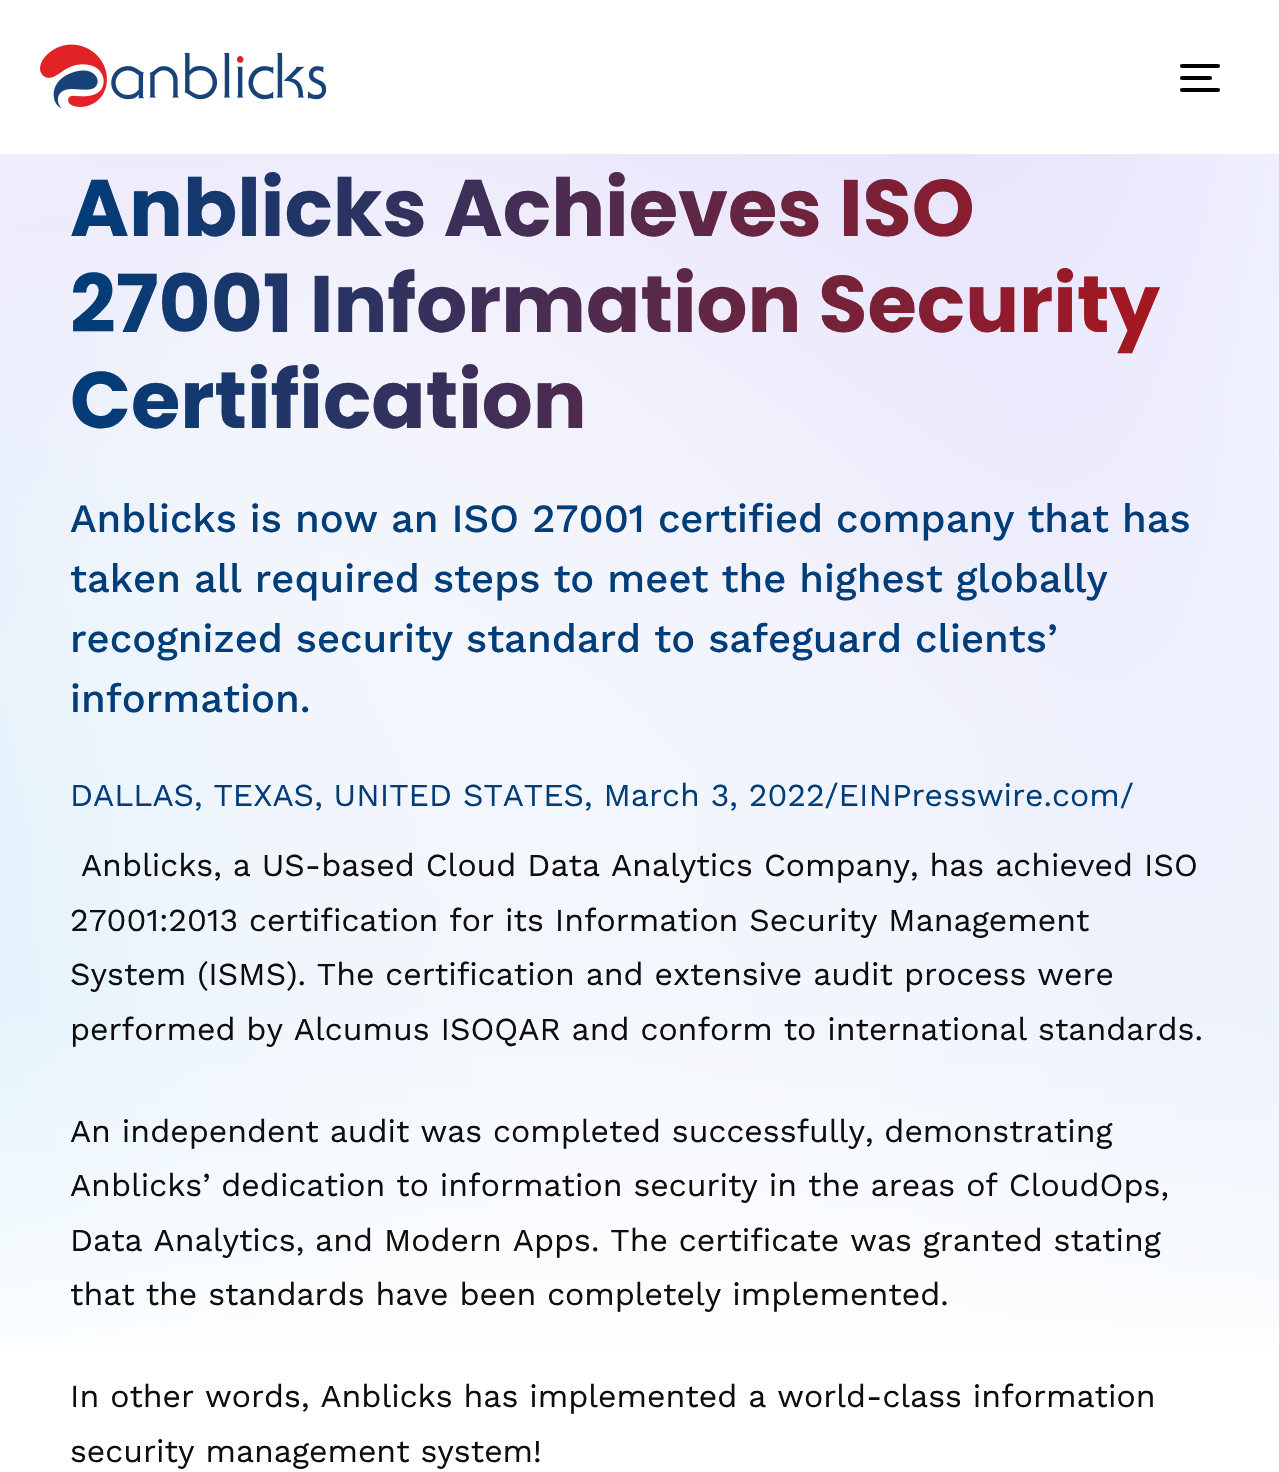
void draw(SkCanvas* canvas) {
	SkPaint paint;
	paint.setAntiAlias(true);
	canvas->clear(0xffffffff);
	canvas->drawImageRect(SkImages::DeferredFromEncodedData(SkData::MakeFromFileName("img1.png")), SkRect::MakeXYWH(40, 44, 287, 64), SkSamplingOptions());
	paint.setColor(0xff000000);
	canvas->drawRoundRect(SkRect::MakeXYWH(1180, 64, 40, 4), 2, 2, paint);
	canvas->drawRoundRect(SkRect::MakeXYWH(1180, 76, 32, 4), 2, 2, paint);
	canvas->drawRoundRect(SkRect::MakeXYWH(1180, 88, 40, 4), 2, 2, paint);
	canvas->drawImageRect(SkImages::DeferredFromEncodedData(SkData::MakeFromFileName("img2.png")), SkRect::MakeXYWH(0, 154, 1279, 1191), SkSamplingOptions());
	SkFont f1(fontMgr->matchFamilyStyle("Poppins", SkFontStyle::Bold()), 80);
	f1.setSubpixel(true);
	{
		const SkColor colors[] = {0xff003d79, 0xffae151b};
		const float stops[] = {0, 1};
		const SkPoint ends[] = {{70, 304}, {1210, 304}};
		paint.setShader(SkGradientShader::MakeLinear(ends, colors, stops, 2, SkTileMode::kClamp));
		paint.setAlpha(255);
	}
	canvas->drawString("Anblicks Achieves ISO", 70, 236, f1, paint);
	canvas->drawString("27001 Information Security", 70, 332, f1, paint);
	canvas->drawString("Certification", 70, 428, f1, paint);
	SkFont f2(fontMgr->matchFamilyStyle("Work Sans", SkFontStyle(500, SkFontStyle::kNormal_Width, SkFontStyle::kUpright_Slant)), 40);
	f2.setSubpixel(true);
	paint.setShader(nullptr);
	paint.setColor(0xff003d79);
	canvas->drawString("Anblicks is now an ISO 27001 certified company that has", 70, 532, f2, paint);
	canvas->drawString("taken all required steps to meet the highest globally", 70, 592, f2, paint);
	canvas->drawString("recognized security standard to safeguard clients’", 70, 652, f2, paint);
	canvas->drawString("information.", 70, 712, f2, paint);
	SkFont f3(fontMgr->matchFamilyStyle("Work Sans", SkFontStyle::Normal()), 32);
	f3.setSubpixel(true);
	canvas->drawString("DALLAS, TEXAS, UNITED STATES, March 3, 2022/EINPresswire.com/", 70, 806, f3, paint);
	paint.setColor(0xff0e0e0e);
	canvas->drawString("Anblicks, a US-based Cloud Data Analytics Company, has achieved ISO", 81, 876, f3, paint);
	canvas->drawString("27001:2013 certification for its Information Security Management", 70, 931, f3, paint);
	canvas->drawString("System (ISMS). The certification and extensive audit process were", 70, 985, f3, paint);
	canvas->drawString("performed by Alcumus ISOQAR and conform to international standards.", 70, 1040, f3, paint);
	canvas->drawString("An independent audit was completed successfully, demonstrating", 70, 1142, f3, paint);
	canvas->drawString("Anblicks’ dedication to information security in the areas of CloudOps,", 70, 1196, f3, paint);
	canvas->drawString("Data Analytics, and Modern Apps. The certificate was granted stating", 70, 1251, f3, paint);
	canvas->drawString("that the standards have been completely implemented.", 70, 1305, f3, paint);
	canvas->drawString("In other words, Anblicks has implemented a world-class information", 70, 1407, f3, paint);
	canvas->drawString("security management system!", 70, 1462, f3, paint);
}
